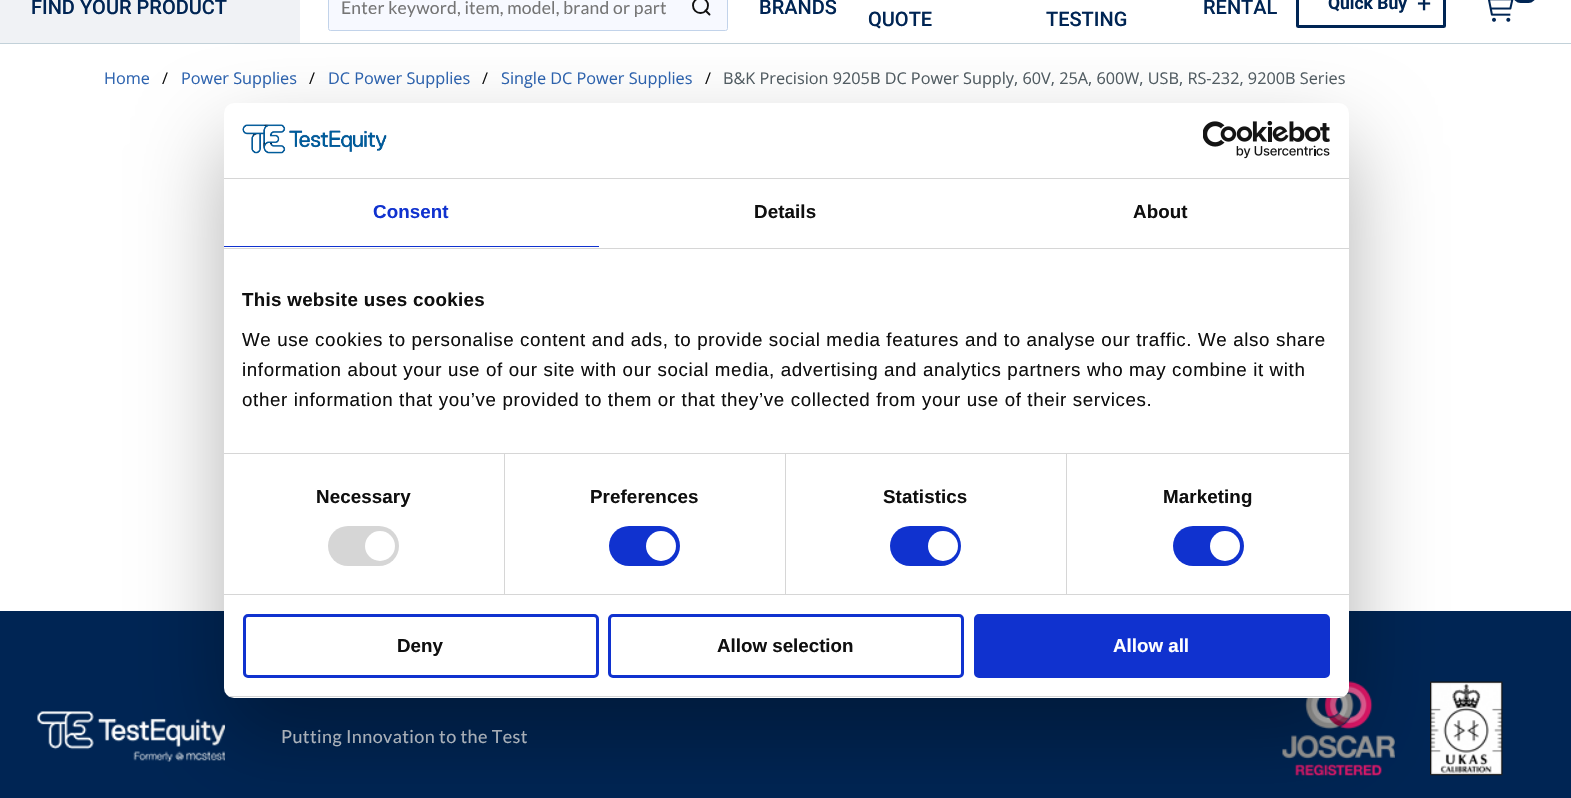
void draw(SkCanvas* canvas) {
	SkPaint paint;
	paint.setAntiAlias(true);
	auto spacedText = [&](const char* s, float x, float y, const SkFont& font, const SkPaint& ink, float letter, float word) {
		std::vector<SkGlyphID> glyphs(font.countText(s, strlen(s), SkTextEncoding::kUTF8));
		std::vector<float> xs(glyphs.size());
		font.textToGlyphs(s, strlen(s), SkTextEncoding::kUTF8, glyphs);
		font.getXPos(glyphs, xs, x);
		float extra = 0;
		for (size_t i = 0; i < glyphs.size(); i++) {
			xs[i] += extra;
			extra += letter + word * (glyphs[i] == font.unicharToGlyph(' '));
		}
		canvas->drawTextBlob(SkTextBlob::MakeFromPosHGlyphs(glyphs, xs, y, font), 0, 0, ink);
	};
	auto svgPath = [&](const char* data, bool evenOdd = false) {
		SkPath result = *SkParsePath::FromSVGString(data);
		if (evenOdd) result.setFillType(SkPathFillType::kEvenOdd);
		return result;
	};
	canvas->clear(0xffffffff);
	paint.setColor(0xffc2d1d9);
	canvas->drawRect(SkRect::MakeXYWH(0, 43, 1571, 1), paint);
	paint.setColor(0xfff0f2f5);
	canvas->drawRect(SkRect::MakeXYWH(0, 0, 300, 43), paint);
	SkFont f1(fontMgr->matchFamilyStyle("Roboto", SkFontStyle(500, SkFontStyle::kNormal_Width, SkFontStyle::kUpright_Slant)), 20);
	f1.setSubpixel(true);
	paint.setColor(0xff002554);
	canvas->drawString("FIND YOUR PRODUCT", 31, 14, f1, paint);
	paint.setColor(0xfff7f9ff);
	canvas->drawRoundRect(SkRect::MakeXYWH(328.5, -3.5, 399, 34), 2, 2, paint);
	paint.setStroke(true);
	paint.setStrokeWidth(1);
	paint.setColor(0xffc2d3ea);
	canvas->drawRoundRect(SkRect::MakeXYWH(328.5, -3.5, 399, 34), 2, 2, paint);
	SkFont f2(fontMgr->matchFamilyStyle("Lato", SkFontStyle::Normal()), 17.5);
	f2.setSubpixel(true);
	paint.setStroke(false);
	paint.setColor(0xff757575);
	spacedText("Enter keyword, item, model, brand or part", 341, 14, f2, paint, 0.2, 0);
	paint.setStroke(true);
	paint.setStrokeWidth(1.9);
	paint.setColor(0xff0f0f0f);
	canvas->drawCircle(700.5, 5.5, 7.5, paint);
	paint.setStrokeCap(SkPaint::kRound_Cap);
	paint.setStrokeJoin(SkPaint::kRound_Join);
	canvas->drawPath(svgPath("M709.5 14.5L705.5 10.5"), paint);
	paint.setStroke(false);
	paint.setColor(0xff002554);
	canvas->drawString("BRANDS", 759, 14, f1, paint);
	canvas->drawString("RENTAL", 1203, 14, f1, paint);
	paint.setStroke(true);
	paint.setStrokeWidth(3);
	paint.setStrokeCap(SkPaint::kButt_Cap);
	paint.setStrokeJoin(SkPaint::kMiter_Join);
	canvas->drawRoundRect(SkRect::MakeXYWH(1297.5, -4.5, 147, 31), 1, 1, paint);
	SkFont f3(fontMgr->matchFamilyStyle("Roboto", SkFontStyle::Bold()), 17.5);
	f3.setSubpixel(true);
	paint.setStroke(false);
	canvas->drawString("Quick Buy", 1328, 9, f3, paint);
	SkFont f4(fontMgr->matchFamilyStyle("Roboto", SkFontStyle::Normal()), 25);
	f4.setSubpixel(true);
	canvas->drawString("+", 1417, 12, f4, paint);
	canvas->drawString("QUOTE", 868, 26, f1, paint);
	canvas->drawString("TESTING", 1046, 26, f1, paint);
	canvas->drawImageRect(SkImages::DeferredFromEncodedData(SkData::MakeFromFileName("img1.png")), SkRect::MakeXYWH(1488, 0, 26, 22), SkSamplingOptions());
	canvas->drawRoundRect(SkRect::MakeXYWH(1513, -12, 23, 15), 11.5, 11.5, paint);
	SkFont f5(fontMgr->matchFamilyStyle("Open Sans", SkFontStyle::Normal()), 16.25);
	f5.setSubpixel(true);
	paint.setColor(0xff2e64b0);
	canvas->drawString("Home", 104, 84, f5, paint);
	paint.setColor(0xff0f0f0f);
	canvas->drawString("/", 162, 84, f5, paint);
	paint.setColor(0xff2e64b0);
	canvas->drawString("Power Supplies", 181, 84, f5, paint);
	paint.setColor(0xff0f0f0f);
	canvas->drawString("/", 309, 84, f5, paint);
	paint.setColor(0xff2e64b0);
	canvas->drawString("DC Power Supplies", 328, 84, f5, paint);
	paint.setColor(0xff0f0f0f);
	canvas->drawString("/", 482, 84, f5, paint);
	paint.setColor(0xff2e64b0);
	canvas->drawString("Single DC Power Supplies", 501, 84, f5, paint);
	paint.setColor(0xff0f0f0f);
	canvas->drawString("/", 705, 84, f5, paint);
	paint.setColor(0xff535e64);
	canvas->drawString("B&K Precision 9205B DC Power Supply, 60V, 25A, 600W, USB, RS-232, 9200B Series", 723, 84, f5, paint);
	paint.setColor(0xff002554);
	canvas->drawRect(SkRect::MakeXYWH(0, 611, 1571, 187), paint);
	canvas->drawImageRect(SkImages::DeferredFromEncodedData(SkData::MakeFromFileName("img2.png")), SkRect::MakeXYWH(37, 711, 188, 51), SkSamplingOptions());
	SkFont f6(fontMgr->matchFamilyStyle("Lato", SkFontStyle::Normal()), 18);
	f6.setSubpixel(true);
	paint.setColor(0xffc7cfd9);
	spacedText("Putting Innovation to the Test", 281, 743, f6, paint, 0.4, 0);
	canvas->drawImageRect(SkImages::DeferredFromEncodedData(SkData::MakeFromFileName("img3.png")), SkRect::MakeXYWH(1282, 681, 113, 95), SkSamplingOptions());
	canvas->drawImageRect(SkImages::DeferredFromEncodedData(SkData::MakeFromFileName("img4.png")), SkRect::MakeXYWH(1430, 681, 73, 95), SkSamplingOptions());
	paint.setColor(0x4d000000);
	paint.setMaskFilter(SkMaskFilter::MakeBlur(kNormal_SkBlurStyle, 42.5));
	canvas->drawRoundRect(SkRect::MakeXYWH(224, 143, 1125, 595), 10, 10, paint);
	paint.setMaskFilter(nullptr);
	paint.setColor(0xffffffff);
	canvas->drawRoundRect(SkRect::MakeXYWH(224, 103, 1125, 595), 10, 10, paint);
	paint.setColor(0xffd6d6d6);
	canvas->drawRect(SkRect::MakeXYWH(224, 178, 1125, 1), paint);
	canvas->drawImageRect(SkImages::DeferredFromEncodedData(SkData::MakeFromFileName("img5.png")), SkRect::MakeXYWH(242, 124, 145, 30), SkSamplingOptions());
	canvas->drawImageRect(SkImages::DeferredFromEncodedData(SkData::MakeFromFileName("img6.png")), SkRect::MakeXYWH(1203, 121, 127, 38), SkSamplingOptions());
	canvas->drawRect(SkRect::MakeXYWH(224, 248, 1125, 1), paint);
	paint.setColor(0xff1032cf);
	canvas->drawRect(SkRect::MakeXYWH(224, 246, 375, 1), paint);
	SkFont f7(fontMgr->matchFamilyStyle("Liberation Sans", SkFontStyle::Bold()), 18.75);
	f7.setSubpixel(true);
	spacedText("Consent", 373, 218, f7, paint, 0.1, 0);
	paint.setColor(0xff0f0f0f);
	spacedText("Details", 754, 218, f7, paint, 0.1, 0);
	spacedText("About", 1133, 218, f7, paint, 0.1, 0);
	paint.setColor(0xffd6d6d6);
	canvas->drawRect(SkRect::MakeXYWH(224, 453, 1125, 1), paint);
	paint.setColor(0xff0f0f0f);
	spacedText("This website uses cookies", 242, 306, f7, paint, 0.3, 0);
	SkFont f8(fontMgr->matchFamilyStyle("Liberation Sans", SkFontStyle::Normal()), 18.75);
	f8.setSubpixel(true);
	spacedText("We use cookies to personalise content and ads, to provide social media features and to analyse our traffic. We also share", 242, 346, f8, paint, 0.62, 0);
	spacedText("information about your use of our site with our social media, advertising and analytics partners who may combine it with", 242, 376, f8, paint, 0.62, 0);
	spacedText("other information that you’ve provided to them or that they’ve collected from your use of their services.", 242, 406, f8, paint, 0.62, 0);
	paint.setColor(0xffd6d6d6);
	canvas->drawRect(SkRect::MakeXYWH(224, 594, 1125, 1), paint);
	canvas->drawRect(SkRect::MakeXYWH(504, 454, 1, 140), paint);
	paint.setColor(0xff0f0f0f);
	spacedText("Necessary", 316, 503, f7, paint, 0.1, 0);
	paint.setColor(0xffd6d6d6);
	canvas->drawRoundRect(SkRect::MakeXYWH(328, 526, 71, 40), 20, 20, paint);
	paint.setColor(0xffffffff);
	canvas->drawCircle(380, 546, 15, paint);
	paint.setColor(0xffd6d6d6);
	canvas->drawRect(SkRect::MakeXYWH(785, 454, 1, 140), paint);
	paint.setColor(0xff0f0f0f);
	spacedText("Preferences", 590, 503, f7, paint, 0.1, 0);
	paint.setColor(0xff1032cf);
	canvas->drawRoundRect(SkRect::MakeXYWH(609, 526, 71, 40), 20, 20, paint);
	paint.setColor(0xffffffff);
	canvas->drawCircle(661, 546, 15, paint);
	paint.setColor(0xffd6d6d6);
	canvas->drawRect(SkRect::MakeXYWH(1066, 454, 1, 140), paint);
	paint.setColor(0xff0f0f0f);
	spacedText("Statistics", 883, 503, f7, paint, 0.1, 0);
	paint.setColor(0xff1032cf);
	canvas->drawRoundRect(SkRect::MakeXYWH(890, 526, 71, 40), 20, 20, paint);
	paint.setColor(0xffffffff);
	canvas->drawCircle(943, 546, 15, paint);
	paint.setColor(0xff0f0f0f);
	spacedText("Marketing", 1163, 503, f7, paint, 0.1, 0);
	paint.setColor(0xff1032cf);
	canvas->drawRoundRect(SkRect::MakeXYWH(1173, 526, 71, 40), 20, 20, paint);
	paint.setColor(0xffffffff);
	canvas->drawCircle(1225, 546, 15, paint);
	canvas->save();
	canvas->clipPath(svgPath("M234 103H1339C1344.5 103 1349 107.5 1349 113V688C1349 693.5 1344.5 698 1339 698H234C228.5 698 224 693.5 224 688V113C224 107.5 228.5 103 234 103Z"), true);
	paint.setColor(0xffd6d6d6);
	canvas->drawRect(SkRect::MakeXYWH(224, 696, 1125, 1), paint);
	canvas->restore();
	paint.setStroke(true);
	paint.setColor(0xff1032cf);
	canvas->drawRoundRect(SkRect::MakeXYWH(244.5, 615.5, 353, 61), 3.5, 3.5, paint);
	paint.setStroke(false);
	paint.setColor(0xff0f0f0f);
	canvas->drawString("Deny", 397, 652, f7, paint);
	paint.setStroke(true);
	paint.setColor(0xff1032cf);
	canvas->drawRoundRect(SkRect::MakeXYWH(609.5, 615.5, 353, 61), 3.5, 3.5, paint);
	paint.setStroke(false);
	paint.setColor(0xff0f0f0f);
	canvas->drawString("Allow selection", 717, 652, f7, paint);
	paint.setColor(0xff1032cf);
	canvas->drawRoundRect(SkRect::MakeXYWH(975.5, 615.5, 353, 61), 3.5, 3.5, paint);
	paint.setStroke(true);
	canvas->drawRoundRect(SkRect::MakeXYWH(975.5, 615.5, 353, 61), 3.5, 3.5, paint);
	paint.setStroke(false);
	paint.setColor(0xffffffff);
	canvas->drawString("Allow all", 1113, 652, f7, paint);
}
